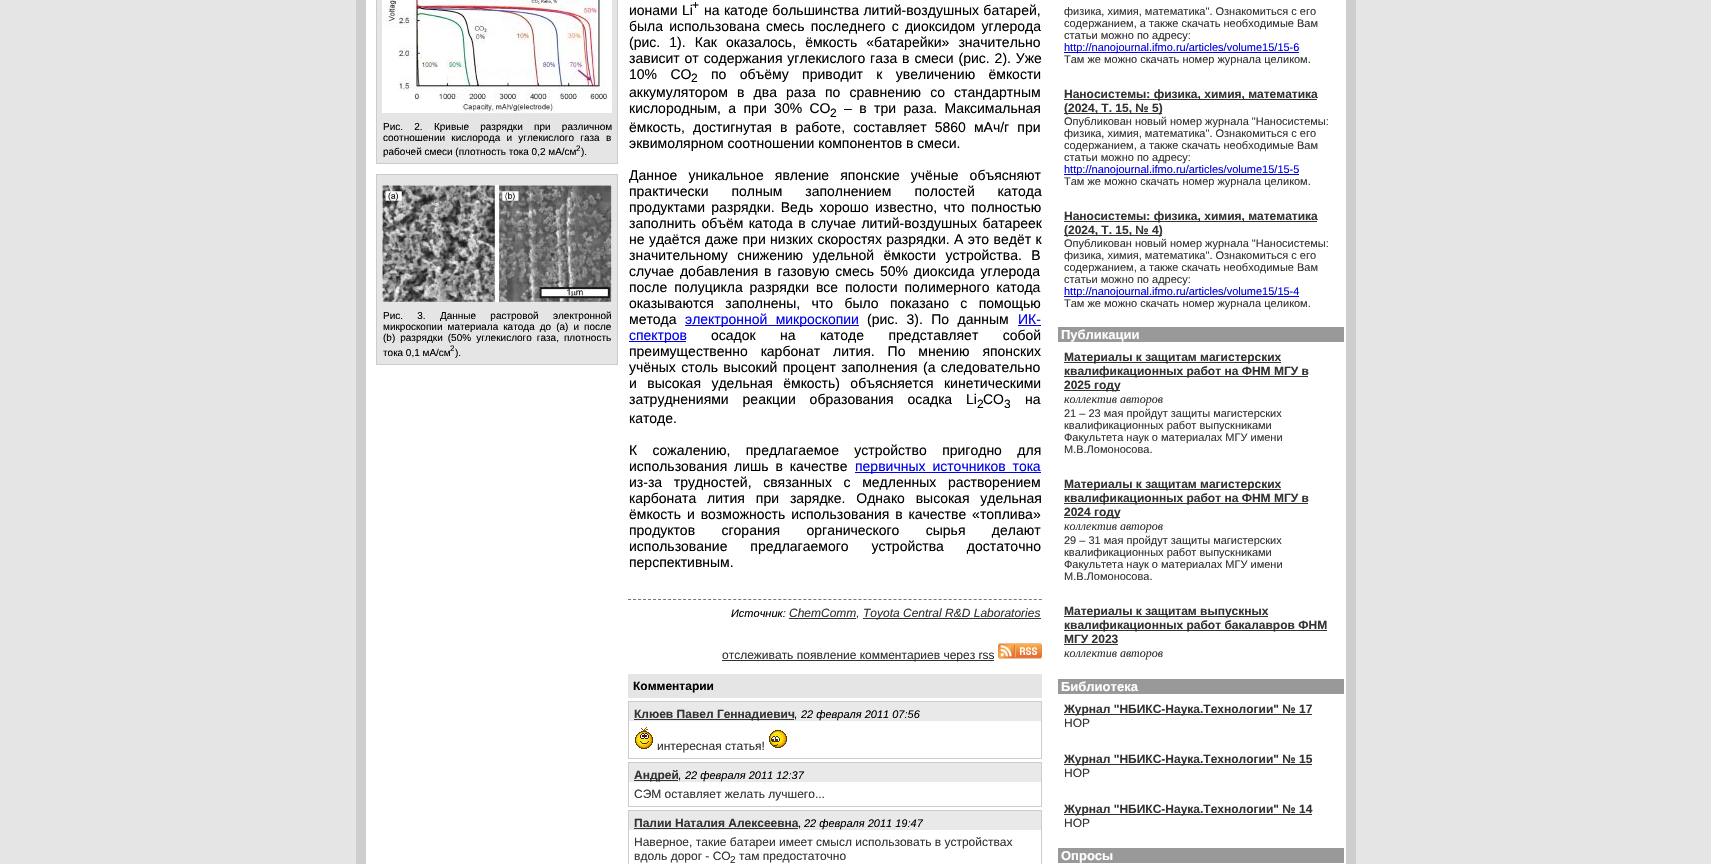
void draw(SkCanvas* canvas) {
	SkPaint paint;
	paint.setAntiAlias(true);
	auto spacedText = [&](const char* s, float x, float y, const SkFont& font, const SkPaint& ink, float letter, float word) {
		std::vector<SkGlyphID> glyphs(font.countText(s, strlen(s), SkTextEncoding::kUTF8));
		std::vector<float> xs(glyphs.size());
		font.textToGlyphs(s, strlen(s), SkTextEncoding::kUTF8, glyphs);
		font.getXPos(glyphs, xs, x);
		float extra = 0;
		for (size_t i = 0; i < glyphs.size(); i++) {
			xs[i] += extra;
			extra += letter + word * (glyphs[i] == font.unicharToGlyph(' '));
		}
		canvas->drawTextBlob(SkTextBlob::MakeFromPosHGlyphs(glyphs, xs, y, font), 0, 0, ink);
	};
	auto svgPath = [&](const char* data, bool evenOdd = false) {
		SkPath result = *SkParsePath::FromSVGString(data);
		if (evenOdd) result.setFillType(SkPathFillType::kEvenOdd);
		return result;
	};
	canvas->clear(0xffe5e5e5);
	paint.setColor(0xffcfcece);
	canvas->drawRect(SkRect::MakeXYWH(356, 0, 1000, 864), paint);
	paint.setColor(0xffffffff);
	canvas->drawRect(SkRect::MakeXYWH(366, 0, 980, 864), paint);
	paint.setColor(0xffe5e5e5);
	canvas->drawRect(SkRect::MakeXYWH(376.5, -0.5, 241, 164), paint);
	paint.setStroke(true);
	paint.setStrokeWidth(1);
	paint.setColor(0xffcccccc);
	canvas->drawRect(SkRect::MakeXYWH(376.5, -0.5, 241, 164), paint);
	canvas->drawImageRect(SkImages::DeferredFromEncodedData(SkData::MakeFromFileName("img1.png")), SkRect::MakeXYWH(382, 0, 230, 113), SkSamplingOptions());
	SkFont f1(fontMgr->matchFamilyStyle("Liberation Sans", SkFontStyle::Normal()), 10);
	f1.setSubpixel(true);
	paint.setStroke(false);
	paint.setColor(0xff000000);
	spacedText("Рис. 2. Кривые разрядки при различном", 383, 130, f1, paint, 0, 8.5);
	spacedText("соотношении кислорода и углекислого газа в", 383, 141, f1, paint, 0, 3.5);
	canvas->drawString("рабочей смеси (плотность тока 0,2 мА/см", 383, 155, f1, paint);
	SkFont f2(fontMgr->matchFamilyStyle("Liberation Sans", SkFontStyle::Normal()), 8);
	f2.setSubpixel(true);
	canvas->drawString("2", 576, 151, f2, paint);
	canvas->drawString(").", 581, 155, f1, paint);
	paint.setColor(0xffe5e5e5);
	canvas->drawRect(SkRect::MakeXYWH(376.5, 174.5, 241, 190), paint);
	paint.setStroke(true);
	paint.setColor(0xffcccccc);
	canvas->drawRect(SkRect::MakeXYWH(376.5, 174.5, 241, 190), paint);
	canvas->drawImageRect(SkImages::DeferredFromEncodedData(SkData::MakeFromFileName("img2.png")), SkRect::MakeXYWH(382, 185, 230, 117), SkSamplingOptions());
	paint.setStroke(false);
	paint.setColor(0xff000000);
	spacedText("Рис. 3. Данные растровой электронной", 383, 319, f1, paint, 0, 11.5);
	spacedText("микроскопии материала катода до (а) и после", 383, 330, f1, paint, 0, 2.25);
	spacedText("(b) разрядки (50% углекислого газа, плотность", 383, 341, f1, paint, 0, 2.25);
	canvas->drawString("тока 0,1 мА/см", 383, 356, f1, paint);
	canvas->drawString("2", 450, 351, f2, paint);
	canvas->drawString(").", 455, 356, f1, paint);
	SkFont f3(fontMgr->matchFamilyStyle("Liberation Sans", SkFontStyle::Normal()), 14);
	f3.setSubpixel(true);
	spacedText("ионами Li", 629, 15, f3, paint, 0, 0.5);
	SkFont f4(fontMgr->matchFamilyStyle("Liberation Sans", SkFontStyle::Normal()), 12);
	f4.setSubpixel(true);
	canvas->drawString("+", 692, 9, f4, paint);
	spacedText("на катоде большинства литий-воздушных батарей,", 704, 15, f3, paint, 0, 0.5);
	spacedText("была использована смесь последнего с диоксидом углерода", 629, 31, f3, paint, 0, 2.25);
	spacedText("(рис. 1). Как оказалось, ёмкость «батарейки» значительно", 629, 47, f3, paint, 0, 5.25);
	spacedText("зависит от содержания углекислого газа в смеси (рис. 2). Уже", 629, 63, f3, paint, 0, 1);
	spacedText("10% CO", 629, 79, f3, paint, 0, 9.5);
	canvas->drawString("2", 691, 82, f4, paint);
	spacedText("по объёму приводит к увеличению ёмкости", 711, 79, f3, paint, 0, 9.5);
	spacedText("аккумулятором в два раза по сравнению со стандартным", 629, 97, f3, paint, 0, 5.25);
	spacedText("кислородным, а при 30% CO", 629, 113, f3, paint, 0, 3.5);
	canvas->drawString("2", 830, 117, f4, paint);
	spacedText("– в три раза. Максимальная", 844, 113, f3, paint, 0, 3.5);
	spacedText("ёмкость, достигнутая в работе, составляет 5860 мАч/г при", 629, 132, f3, paint, 0, 4.25);
	canvas->drawString("эквимолярном соотношении компонентов в смеси.", 629, 148, f3, paint);
	spacedText("Данное уникальное явление японские учёные объясняют", 629, 180, f3, paint, 0, 7.25);
	spacedText("практически полным заполнением полостей катода", 629, 196, f3, paint, 0, 19);
	spacedText("продуктами разрядки. Ведь хорошо известно, что полностью", 629, 212, f3, paint, 0, 2.25);
	spacedText("заполнить объём катода в случае литий-воздушных батареек", 629, 228, f3, paint, 0, 1.5);
	spacedText("не удаётся даже при низких скоростях разрядки. А это ведёт к", 629, 244, f3, paint, 0, 0.5);
	spacedText("значительному снижению удельной ёмкости устройства. В", 629, 260, f3, paint, 0, 5.5);
	spacedText("случае добавления в газовую смесь 50% диоксида углерода", 629, 276, f3, paint, 0, 2);
	spacedText("после полуцикла разрядки все полости полимерного катода", 629, 292, f3, paint, 0, 3);
	spacedText("оказываются заполнены, что было показано с помощью", 629, 308, f3, paint, 0, 7.5);
	canvas->drawString("метода", 629, 324, f3, paint);
	paint.setColor(0xff0000ee);
	canvas->drawRect(SkRect::MakeXYWH(685, 325, 174, 1), paint);
	spacedText("электронной микроскопии", 685, 324, f3, paint, 0, 4.5);
	paint.setColor(0xff000000);
	spacedText("(рис. 3). По данным", 867, 324, f3, paint, 0, 4.5);
	paint.setColor(0xff0000ee);
	canvas->drawString("ИК-", 1018, 324, f3, paint);
	canvas->drawRect(SkRect::MakeXYWH(1018, 325, 23, 1), paint);
	canvas->drawRect(SkRect::MakeXYWH(629, 341, 57, 1), paint);
	canvas->drawString("спектров", 629, 340, f3, paint);
	paint.setColor(0xff000000);
	spacedText("осадок на катоде представляет собой", 711, 340, f3, paint, 0, 20.5);
	spacedText("преимущественно карбонат лития. По мнению японских", 629, 356, f3, paint, 0, 9);
	spacedText("учёных столь высокий процент заполнения (а следовательно", 629, 372, f3, paint, 0, 1.5);
	spacedText("и высокая удельная ёмкость) объясняется кинетическими", 629, 388, f3, paint, 0, 6.5);
	spacedText("затруднениями реакции образования осадка Li", 629, 404, f3, paint, 0, 10);
	canvas->drawString("2", 977, 408, f4, paint);
	canvas->drawString("CO", 983, 404, f3, paint);
	canvas->drawString("3", 1004, 408, f4, paint);
	canvas->drawString("на", 1025, 404, f3, paint);
	canvas->drawString("катоде.", 629, 423, f3, paint);
	spacedText("К сожалению, предлагаемое устройство пригодно для", 629, 455, f3, paint, 0, 11.5);
	spacedText("использования лишь в качестве", 629, 471, f3, paint, 0, 3);
	paint.setColor(0xff0000ee);
	canvas->drawRect(SkRect::MakeXYWH(855, 472, 186, 1), paint);
	spacedText("первичных источников тока", 855, 471, f3, paint, 0, 3);
	paint.setColor(0xff000000);
	spacedText("из-за трудностей, связанных с медленных растворением", 629, 487, f3, paint, 0, 7.75);
	spacedText("карбоната лития при зарядке. Однако высокая удельная", 629, 503, f3, paint, 0, 7);
	spacedText("ёмкость и возможность использования в качестве «топлива»", 629, 519, f3, paint, 0, 2);
	spacedText("продуктов сгорания органического сырья делают", 629, 535, f3, paint, 0, 22.5);
	spacedText("использование предлагаемого устройства достаточно", 629, 551, f3, paint, 0, 19);
	canvas->drawString("перспективным.", 629, 567, f3, paint);
	paint.setStroke(true);
	paint.setColor(0xff777777);
	paint.setPathEffect(SkDashPathEffect::Make({{3, 2.01f}}, 0));
	canvas->drawPath(svgPath("M628 599.5H1042"), paint);
	paint.setPathEffect(nullptr);
	SkFont f5(fontMgr->matchFamilyStyle("Liberation Sans", SkFontStyle::Italic()), 11);
	f5.setSubpixel(true);
	paint.setStroke(false);
	paint.setColor(0xff000000);
	canvas->drawString("Источник:", 731, 617, f5, paint);
	paint.setColor(0xff333333);
	canvas->drawRect(SkRect::MakeXYWH(789, 618, 67, 1), paint);
	SkFont f6(fontMgr->matchFamilyStyle("Liberation Sans", SkFontStyle::Italic()), 12);
	f6.setSubpixel(true);
	canvas->drawString("ChemComm,", 789, 617, f6, paint);
	canvas->drawRect(SkRect::MakeXYWH(863, 618, 178, 1), paint);
	canvas->drawString("Toyota Central R&D Laboratories", 863, 617, f6, paint);
	canvas->drawRect(SkRect::MakeXYWH(722, 660, 272, 1), paint);
	canvas->drawString("отслеживать появление комментариев через rss", 722, 659, f4, paint);
	canvas->drawImageRect(SkImages::DeferredFromEncodedData(SkData::MakeFromFileName("img3.png")), SkRect::MakeXYWH(998, 643, 44, 16), SkSamplingOptions());
	paint.setColor(0xffe5e5e5);
	canvas->drawRect(SkRect::MakeXYWH(628, 674, 414, 24), paint);
	SkFont f7(fontMgr->matchFamilyStyle("Liberation Sans", SkFontStyle::Bold()), 12);
	f7.setSubpixel(true);
	paint.setColor(0xff000000);
	canvas->drawString("Комментарии", 633, 690, f7, paint);
	paint.setColor(0xffe9e9e9);
	canvas->drawRect(SkRect::MakeXYWH(629, 702, 412, 19), paint);
	paint.setColor(0xffcccccc);
	canvas->drawRect(SkRect::MakeXYWH(628, 701, 414, 1), paint);
	canvas->drawRect(SkRect::MakeXYWH(1041, 701, 1, 58), paint);
	canvas->drawRect(SkRect::MakeXYWH(628, 701, 1, 20), paint);
	paint.setColor(0xff333333);
	canvas->drawRect(SkRect::MakeXYWH(634, 719, 160, 1), paint);
	canvas->drawString("Клюев Павел Геннадиевич", 634, 718, f7, paint);
	SkFont f8(fontMgr->matchFamilyStyle("Liberation Sans", SkFontStyle::Normal()), 11);
	f8.setSubpixel(true);
	paint.setColor(0xff000000);
	canvas->drawString(",", 794, 718, f8, paint);
	canvas->drawString("22 февраля 2011 07:56", 801, 718, f5, paint);
	paint.setColor(0xffcccccc);
	canvas->drawRect(SkRect::MakeXYWH(628, 758, 414, 1), paint);
	canvas->drawRect(SkRect::MakeXYWH(628, 721, 1, 38), paint);
	canvas->drawImageRect(SkImages::DeferredFromEncodedData(SkData::MakeFromFileName("img4.png")), SkRect::MakeXYWH(635, 727, 18, 22), SkSamplingOptions());
	paint.setColor(0xff333333);
	canvas->drawString("интересная статья!", 657, 750, f4, paint);
	canvas->drawImageRect(SkImages::DeferredFromEncodedData(SkData::MakeFromFileName("img5.png")), SkRect::MakeXYWH(769, 730, 18, 18), SkSamplingOptions());
	paint.setColor(0xffe9e9e9);
	canvas->drawRect(SkRect::MakeXYWH(629, 763, 412, 19), paint);
	paint.setColor(0xffcccccc);
	canvas->drawRect(SkRect::MakeXYWH(628, 762, 414, 1), paint);
	canvas->drawRect(SkRect::MakeXYWH(1041, 762, 1, 45), paint);
	canvas->drawRect(SkRect::MakeXYWH(628, 762, 1, 20), paint);
	paint.setColor(0xff333333);
	canvas->drawRect(SkRect::MakeXYWH(634, 780, 44, 1), paint);
	canvas->drawString("Андрей", 634, 779, f7, paint);
	paint.setColor(0xff000000);
	canvas->drawString(",", 678, 779, f8, paint);
	canvas->drawString("22 февраля 2011 12:37", 685, 779, f5, paint);
	paint.setColor(0xffcccccc);
	canvas->drawRect(SkRect::MakeXYWH(628, 806, 414, 1), paint);
	canvas->drawRect(SkRect::MakeXYWH(628, 782, 1, 25), paint);
	paint.setColor(0xff333333);
	canvas->drawString("СЭМ оставляет желать лучшего...", 634, 798, f4, paint);
	paint.setColor(0xffe9e9e9);
	canvas->drawRect(SkRect::MakeXYWH(629, 811, 412, 19), paint);
	paint.setColor(0xffcccccc);
	canvas->drawRect(SkRect::MakeXYWH(628, 810, 414, 1), paint);
	canvas->drawRect(SkRect::MakeXYWH(1041, 810, 1, 54), paint);
	canvas->drawRect(SkRect::MakeXYWH(628, 810, 1, 54), paint);
	paint.setColor(0xff333333);
	canvas->drawString("Палии Наталия Алексеевна", 634, 827, f7, paint);
	canvas->drawRect(SkRect::MakeXYWH(634, 828, 164, 1), paint);
	paint.setColor(0xff000000);
	canvas->drawString(",", 798, 827, f8, paint);
	canvas->drawString("22 февраля 2011 19:47", 804, 827, f5, paint);
	paint.setColor(0xff333333);
	canvas->drawString("Наверное, такие батареи имеет смысл использовать в устройствах", 634, 846, f4, paint);
	canvas->drawString("вдоль дорог - CO", 634, 860, f4, paint);
	canvas->drawString("2", 730, 863, f1, paint);
	canvas->drawString("там предостаточно", 739, 860, f4, paint);
	canvas->drawString("физика, химия, математика\". Ознакомиться с его", 1064, 15, f8, paint);
	canvas->drawString("содержанием, а также скачать необходимые Вам", 1064, 27, f8, paint);
	canvas->drawString("статьи можно по адресу:", 1064, 39, f8, paint);
	paint.setColor(0xff0000ee);
	canvas->drawRect(SkRect::MakeXYWH(1064, 52, 235, 1), paint);
	canvas->drawString("http://nanojournal.ifmo.ru/articles/volume15/15-6", 1064, 51, f8, paint);
	paint.setColor(0xff333333);
	canvas->drawString("Там же можно скачать номер журнала целиком.", 1064, 63, f8, paint);
	canvas->drawRect(SkRect::MakeXYWH(1064, 99, 253, 1), paint);
	canvas->drawString("Наносистемы: физика, химия, математика", 1064, 98, f7, paint);
	canvas->drawRect(SkRect::MakeXYWH(1064, 113, 98, 1), paint);
	canvas->drawString("(2024, Т. 15, № 5)", 1064, 112, f7, paint);
	canvas->drawString("Опубликован новый номер журнала \"Наносистемы:", 1064, 125, f8, paint);
	canvas->drawString("физика, химия, математика\". Ознакомиться с его", 1064, 137, f8, paint);
	canvas->drawString("содержанием, а также скачать необходимые Вам", 1064, 149, f8, paint);
	canvas->drawString("статьи можно по адресу:", 1064, 161, f8, paint);
	paint.setColor(0xff0000ee);
	canvas->drawRect(SkRect::MakeXYWH(1064, 174, 235, 1), paint);
	canvas->drawString("http://nanojournal.ifmo.ru/articles/volume15/15-5", 1064, 173, f8, paint);
	paint.setColor(0xff333333);
	canvas->drawString("Там же можно скачать номер журнала целиком.", 1064, 185, f8, paint);
	canvas->drawRect(SkRect::MakeXYWH(1064, 221, 253, 1), paint);
	canvas->drawString("Наносистемы: физика, химия, математика", 1064, 220, f7, paint);
	canvas->drawRect(SkRect::MakeXYWH(1064, 235, 98, 1), paint);
	canvas->drawString("(2024, Т. 15, № 4)", 1064, 234, f7, paint);
	canvas->drawString("Опубликован новый номер журнала \"Наносистемы:", 1064, 247, f8, paint);
	canvas->drawString("физика, химия, математика\". Ознакомиться с его", 1064, 259, f8, paint);
	canvas->drawString("содержанием, а также скачать необходимые Вам", 1064, 271, f8, paint);
	canvas->drawString("статьи можно по адресу:", 1064, 283, f8, paint);
	paint.setColor(0xff0000ee);
	canvas->drawRect(SkRect::MakeXYWH(1064, 296, 235, 1), paint);
	canvas->drawString("http://nanojournal.ifmo.ru/articles/volume15/15-4", 1064, 295, f8, paint);
	paint.setColor(0xff333333);
	canvas->drawString("Там же можно скачать номер журнала целиком.", 1064, 307, f8, paint);
	paint.setColor(0xff999999);
	canvas->drawRect(SkRect::MakeXYWH(1058, 327, 286, 15), paint);
	SkFont f9(fontMgr->matchFamilyStyle("Liberation Sans", SkFontStyle::Bold()), 13);
	f9.setSubpixel(true);
	paint.setColor(0xffffffff);
	canvas->drawString("Публикации", 1061, 339, f9, paint);
	paint.setColor(0xff333333);
	canvas->drawRect(SkRect::MakeXYWH(1064, 362, 217, 1), paint);
	canvas->drawString("Материалы к защитам магистерских", 1064, 361, f7, paint);
	canvas->drawRect(SkRect::MakeXYWH(1064, 376, 244, 1), paint);
	canvas->drawString("квалификационных работ на ФНМ МГУ в", 1064, 375, f7, paint);
	canvas->drawRect(SkRect::MakeXYWH(1064, 390, 56, 1), paint);
	canvas->drawString("2025 году", 1064, 389, f7, paint);
	SkFont f10(fontMgr->matchFamilyStyle("Liberation Serif", SkFontStyle::Italic()), 12);
	f10.setSubpixel(true);
	canvas->drawString("коллектив авторов", 1064, 403, f10, paint);
	canvas->drawString("21 – 23 мая пройдут защиты магистерских", 1064, 417, f8, paint);
	canvas->drawString("квалификационных работ выпускниками", 1064, 429, f8, paint);
	canvas->drawString("Факультета наук о материалах МГУ имени", 1064, 441, f8, paint);
	canvas->drawString("М.В.Ломоносова.", 1064, 453, f8, paint);
	canvas->drawRect(SkRect::MakeXYWH(1064, 489, 217, 1), paint);
	canvas->drawString("Материалы к защитам магистерских", 1064, 488, f7, paint);
	canvas->drawRect(SkRect::MakeXYWH(1064, 503, 244, 1), paint);
	canvas->drawString("квалификационных работ на ФНМ МГУ в", 1064, 502, f7, paint);
	canvas->drawRect(SkRect::MakeXYWH(1064, 517, 56, 1), paint);
	canvas->drawString("2024 году", 1064, 516, f7, paint);
	canvas->drawString("коллектив авторов", 1064, 530, f10, paint);
	canvas->drawString("29 – 31 мая пройдут защиты магистерских", 1064, 544, f8, paint);
	canvas->drawString("квалификационных работ выпускниками", 1064, 556, f8, paint);
	canvas->drawString("Факультета наук о материалах МГУ имени", 1064, 568, f8, paint);
	canvas->drawString("М.В.Ломоносова.", 1064, 580, f8, paint);
	canvas->drawRect(SkRect::MakeXYWH(1064, 616, 204, 1), paint);
	canvas->drawString("Материалы к защитам выпускных", 1064, 615, f7, paint);
	canvas->drawRect(SkRect::MakeXYWH(1064, 630, 263, 1), paint);
	canvas->drawString("квалификационных работ бакалавров ФНМ", 1064, 629, f7, paint);
	canvas->drawString("МГУ 2023", 1064, 643, f7, paint);
	canvas->drawRect(SkRect::MakeXYWH(1064, 644, 54, 1), paint);
	canvas->drawString("коллектив авторов", 1064, 657, f10, paint);
	paint.setColor(0xff999999);
	canvas->drawRect(SkRect::MakeXYWH(1058, 679, 286, 15), paint);
	paint.setColor(0xffffffff);
	canvas->drawString("Библиотека", 1061, 691, f9, paint);
	paint.setColor(0xff333333);
	canvas->drawRect(SkRect::MakeXYWH(1064, 714, 248, 1), paint);
	canvas->drawString("Журнал \"НБИКС-Наука.Технологии\" № 17", 1064, 713, f7, paint);
	canvas->drawString("НОР", 1064, 727, f4, paint);
	canvas->drawRect(SkRect::MakeXYWH(1064, 764, 248, 1), paint);
	canvas->drawString("Журнал \"НБИКС-Наука.Технологии\" № 15", 1064, 763, f7, paint);
	canvas->drawString("НОР", 1064, 777, f4, paint);
	canvas->drawRect(SkRect::MakeXYWH(1064, 814, 248, 1), paint);
	canvas->drawString("Журнал \"НБИКС-Наука.Технологии\" № 14", 1064, 813, f7, paint);
	canvas->drawString("НОР", 1064, 827, f4, paint);
	paint.setColor(0xff999999);
	canvas->drawRect(SkRect::MakeXYWH(1058, 848, 286, 15), paint);
	paint.setColor(0xffffffff);
	canvas->drawString("Опросы", 1061, 860, f9, paint);
}
